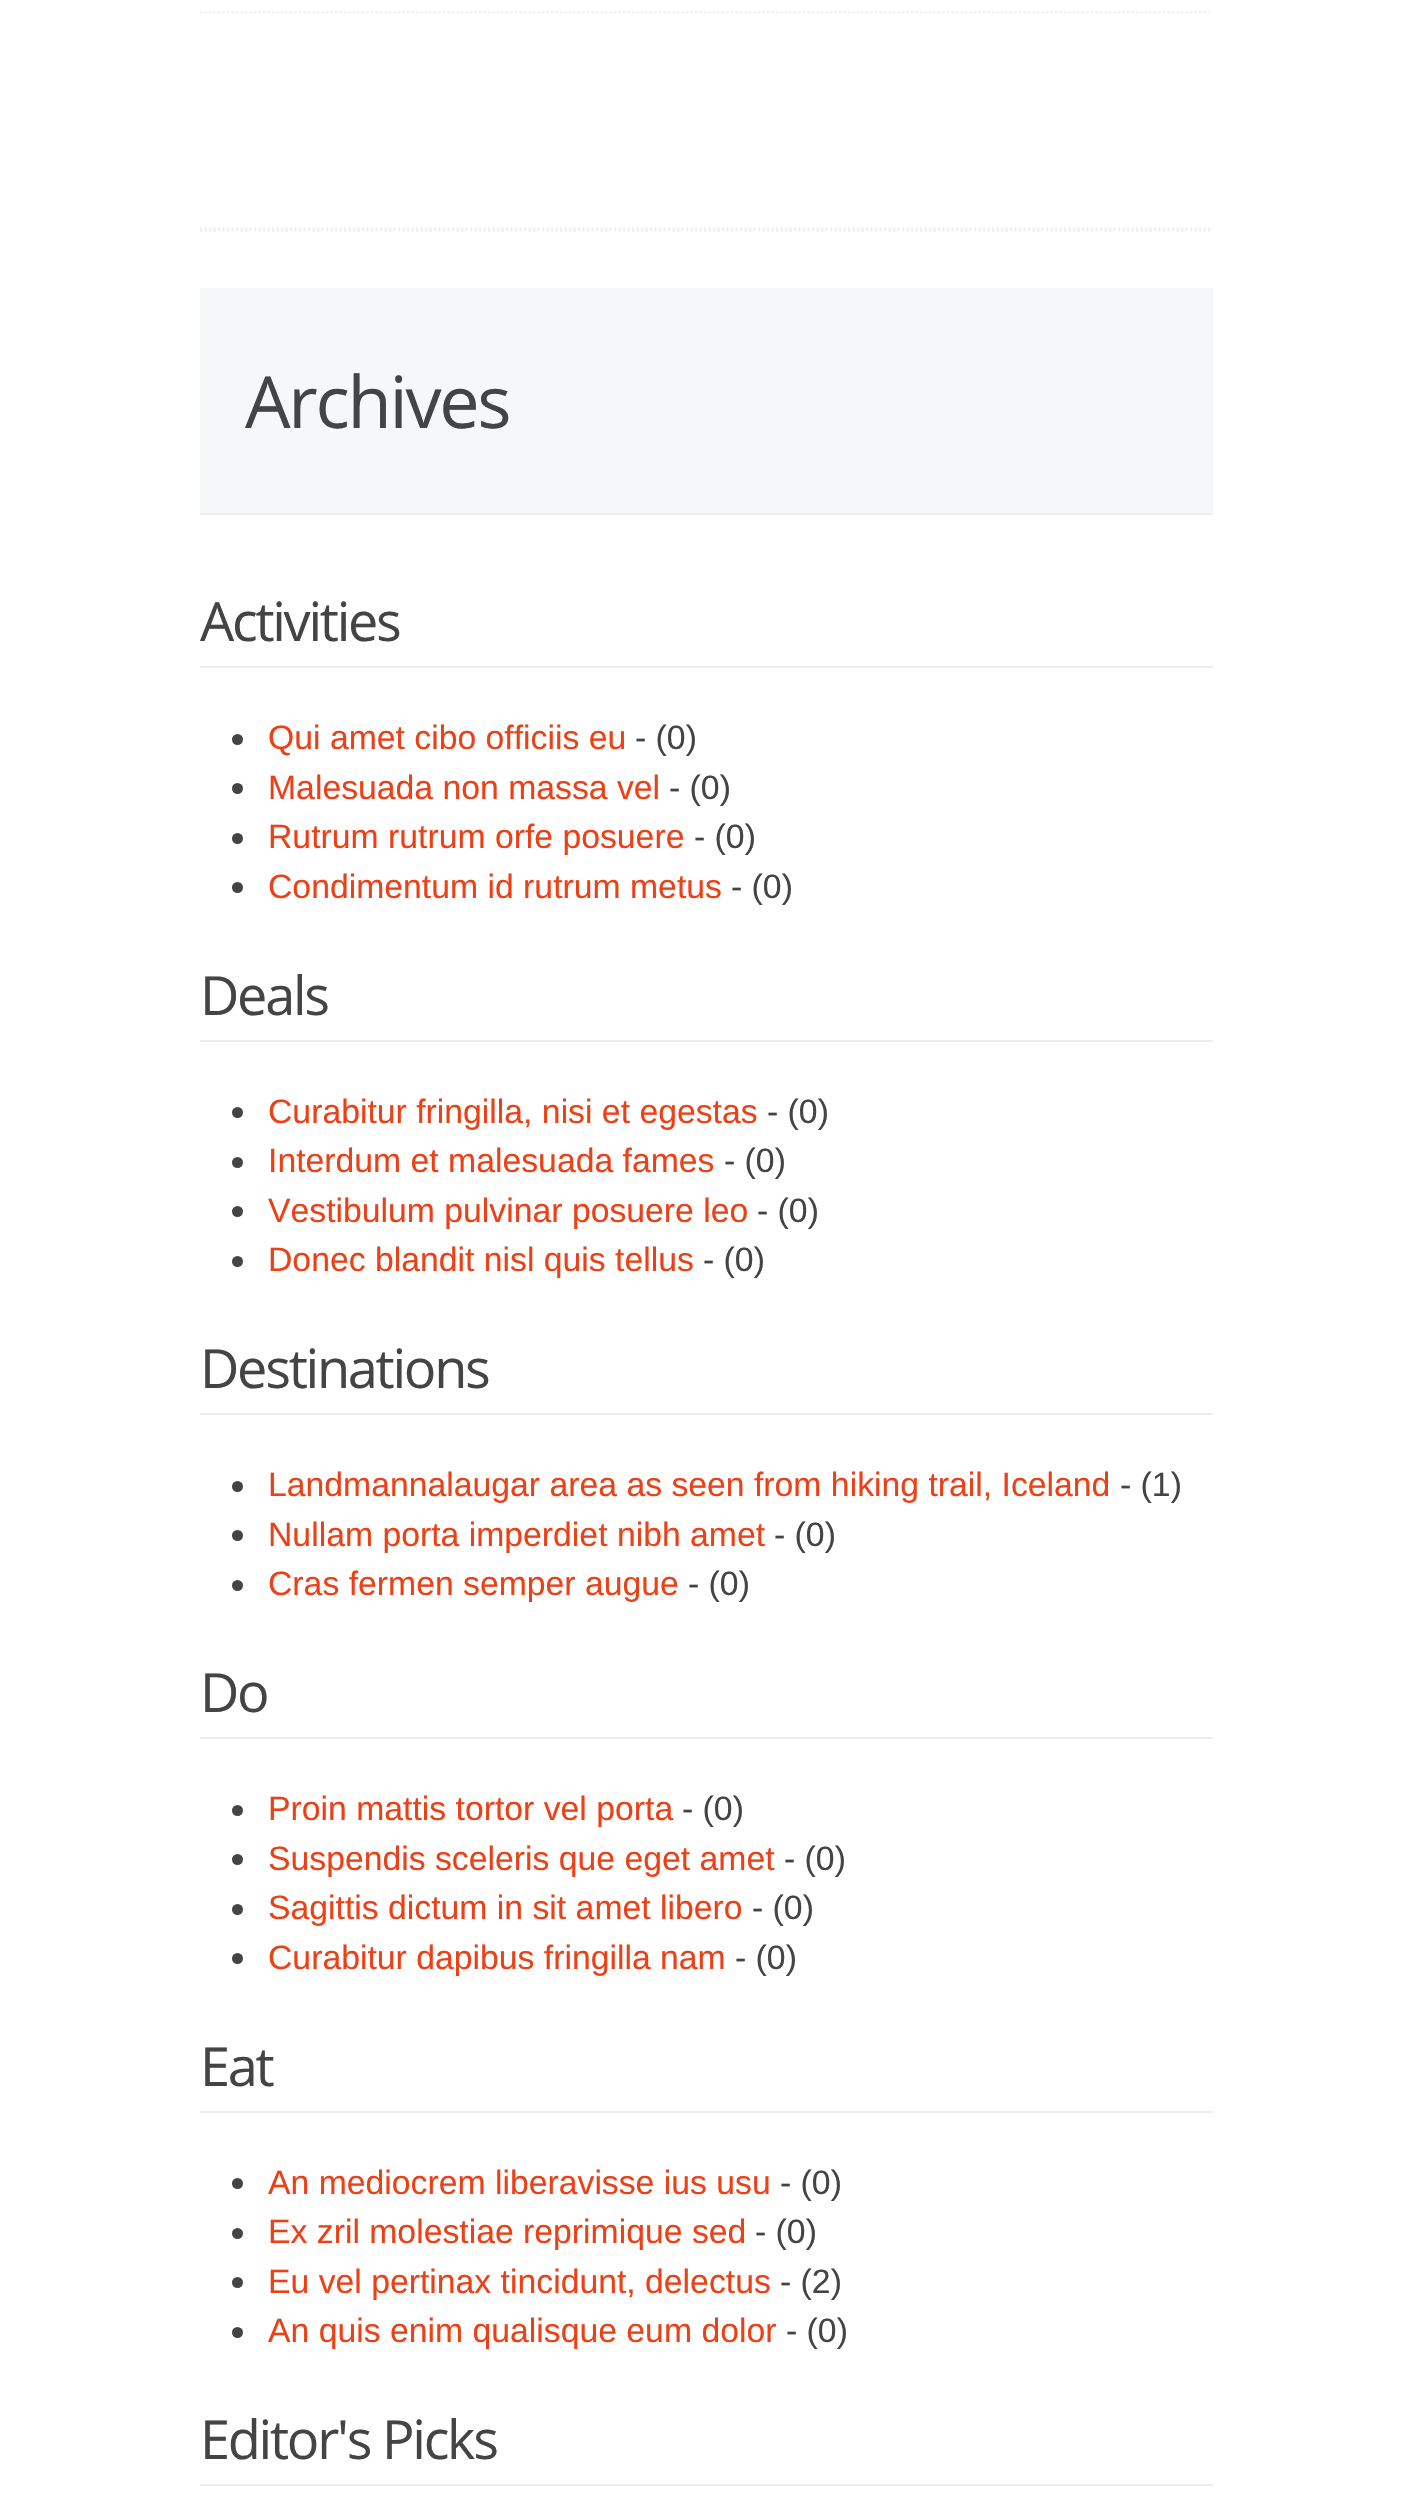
void draw(SkCanvas* canvas) {
	SkPaint paint;
	paint.setAntiAlias(true);
	auto spacedText = [&](const char* s, float x, float y, const SkFont& font, const SkPaint& ink, float letter, float word) {
		std::vector<SkGlyphID> glyphs(font.countText(s, strlen(s), SkTextEncoding::kUTF8));
		std::vector<float> xs(glyphs.size());
		font.textToGlyphs(s, strlen(s), SkTextEncoding::kUTF8, glyphs);
		font.getXPos(glyphs, xs, x);
		float extra = 0;
		for (size_t i = 0; i < glyphs.size(); i++) {
			xs[i] += extra;
			extra += letter + word * (glyphs[i] == font.unicharToGlyph(' '));
		}
		canvas->drawTextBlob(SkTextBlob::MakeFromPosHGlyphs(glyphs, xs, y, font), 0, 0, ink);
	};
	auto svgPath = [&](const char* data, bool evenOdd = false) {
		SkPath result = *SkParsePath::FromSVGString(data);
		if (evenOdd) result.setFillType(SkPathFillType::kEvenOdd);
		return result;
	};
	canvas->clear(0xffffffff);
	paint.setStroke(true);
	paint.setStrokeWidth(2.2);
	paint.setColor(0xffefefef);
	paint.setPathEffect(SkDashPathEffect::Make({{2.25f, 2.25f}}, 0));
	canvas->drawPath(svgPath("M200 12.5H1213"), paint);
	paint.setPathEffect(nullptr);
	paint.setPathEffect(SkDashPathEffect::Make({{2.25f, 2.25f}}, 0));
	canvas->drawPath(svgPath("M200 228.5H1213"), paint);
	paint.setPathEffect(nullptr);
	paint.setPathEffect(SkDashPathEffect::Make({{2.25f, 2.25f}}, 0));
	canvas->drawPath(svgPath("M200 230.5H1213"), paint);
	paint.setPathEffect(nullptr);
	paint.setStroke(false);
	paint.setColor(0xfff5f7f9);
	canvas->drawRect(SkRect::MakeXYWH(200, 288, 1013, 225), paint);
	paint.setColor(0xffefefef);
	canvas->drawRect(SkRect::MakeXYWH(200, 513, 1013, 2), paint);
	SkFont f1(fontMgr->matchFamilyStyle("Open Sans", SkFontStyle::Normal()), 72);
	f1.setSubpixel(true);
	paint.setColor(0xff444444);
	spacedText("Archives", 245, 428, f1, paint, -2.25, 0);
	paint.setColor(0xffeeeeee);
	canvas->drawRect(SkRect::MakeXYWH(200, 666, 1013, 2), paint);
	SkFont f2(fontMgr->matchFamilyStyle("Open Sans", SkFontStyle::Normal()), 54);
	f2.setSubpixel(true);
	paint.setColor(0xff444444);
	spacedText("Activities", 200, 641, f2, paint, -2.25, 0);
	canvas->drawCircle(237.5, 739.5, 5.5, paint);
	SkFont f3(fontMgr->matchFamilyStyle("Liberation Sans", SkFontStyle::Normal()), 33.75);
	f3.setSubpixel(true);
	paint.setColor(0xffec4017);
	canvas->drawString("Qui amet cibo officiis eu", 268, 749, f3, paint);
	paint.setColor(0xff444444);
	canvas->drawString("- (0)", 635, 749, f3, paint);
	canvas->drawCircle(237.5, 788.5, 5.5, paint);
	paint.setColor(0xffec4017);
	canvas->drawString("Malesuada non massa vel", 268, 799, f3, paint);
	paint.setColor(0xff444444);
	canvas->drawString("- (0)", 669, 799, f3, paint);
	canvas->drawCircle(237.5, 838.5, 5.5, paint);
	paint.setColor(0xffec4017);
	canvas->drawString("Rutrum rutrum orfe posuere", 268, 848, f3, paint);
	paint.setColor(0xff444444);
	canvas->drawString("- (0)", 694, 848, f3, paint);
	canvas->drawCircle(237.5, 887.5, 5.5, paint);
	paint.setColor(0xffec4017);
	canvas->drawString("Condimentum id rutrum metus", 268, 898, f3, paint);
	paint.setColor(0xff444444);
	canvas->drawString("- (0)", 731, 898, f3, paint);
	paint.setColor(0xffeeeeee);
	canvas->drawRect(SkRect::MakeXYWH(200, 1040, 1013, 2), paint);
	paint.setColor(0xff444444);
	spacedText("Deals", 200, 1015, f2, paint, -2.25, 0);
	canvas->drawCircle(237.5, 1112.5, 5.5, paint);
	paint.setColor(0xffec4017);
	canvas->drawString("Curabitur fringilla, nisi et egestas", 268, 1123, f3, paint);
	paint.setColor(0xff444444);
	canvas->drawString("- (0)", 767, 1123, f3, paint);
	canvas->drawCircle(237.5, 1162.5, 5.5, paint);
	paint.setColor(0xffec4017);
	canvas->drawString("Interdum et malesuada fames", 268, 1172, f3, paint);
	paint.setColor(0xff444444);
	canvas->drawString("- (0)", 724, 1172, f3, paint);
	canvas->drawCircle(237.5, 1211.5, 5.5, paint);
	paint.setColor(0xffec4017);
	canvas->drawString("Vestibulum pulvinar posuere leo", 268, 1222, f3, paint);
	paint.setColor(0xff444444);
	canvas->drawString("- (0)", 757, 1222, f3, paint);
	canvas->drawCircle(237.5, 1261.5, 5.5, paint);
	paint.setColor(0xffec4017);
	canvas->drawString("Donec blandit nisl quis tellus", 268, 1271, f3, paint);
	paint.setColor(0xff444444);
	canvas->drawString("- (0)", 703, 1271, f3, paint);
	paint.setColor(0xffeeeeee);
	canvas->drawRect(SkRect::MakeXYWH(200, 1413, 1013, 2), paint);
	paint.setColor(0xff444444);
	spacedText("Destinations", 200, 1388, f2, paint, -2.25, 0);
	canvas->drawCircle(237.5, 1486.5, 5.5, paint);
	paint.setColor(0xffec4017);
	canvas->drawString("Landmannalaugar area as seen from hiking trail, Iceland", 268, 1496, f3, paint);
	paint.setColor(0xff444444);
	canvas->drawString("- (1)", 1120, 1496, f3, paint);
	canvas->drawCircle(237.5, 1535.5, 5.5, paint);
	paint.setColor(0xffec4017);
	canvas->drawString("Nullam porta imperdiet nibh amet", 268, 1546, f3, paint);
	paint.setColor(0xff444444);
	canvas->drawString("- (0)", 774, 1546, f3, paint);
	canvas->drawCircle(237.5, 1585.5, 5.5, paint);
	paint.setColor(0xffec4017);
	canvas->drawString("Cras fermen semper augue", 268, 1595, f3, paint);
	paint.setColor(0xff444444);
	canvas->drawString("- (0)", 688, 1595, f3, paint);
	paint.setColor(0xffeeeeee);
	canvas->drawRect(SkRect::MakeXYWH(200, 1737, 1013, 2), paint);
	paint.setColor(0xff444444);
	spacedText("Do", 200, 1712, f2, paint, -2.25, 0);
	canvas->drawCircle(237.5, 1810.5, 5.5, paint);
	paint.setColor(0xffec4017);
	canvas->drawString("Proin mattis tortor vel porta", 268, 1820, f3, paint);
	paint.setColor(0xff444444);
	canvas->drawString("- (0)", 682, 1820, f3, paint);
	canvas->drawCircle(237.5, 1859.5, 5.5, paint);
	paint.setColor(0xffec4017);
	canvas->drawString("Suspendis sceleris que eget amet", 268, 1870, f3, paint);
	paint.setColor(0xff444444);
	canvas->drawString("- (0)", 784, 1870, f3, paint);
	canvas->drawCircle(237.5, 1909.5, 5.5, paint);
	paint.setColor(0xffec4017);
	canvas->drawString("Sagittis dictum in sit amet libero", 268, 1919, f3, paint);
	paint.setColor(0xff444444);
	canvas->drawString("- (0)", 752, 1919, f3, paint);
	canvas->drawCircle(237.5, 1958.5, 5.5, paint);
	paint.setColor(0xffec4017);
	canvas->drawString("Curabitur dapibus fringilla nam", 268, 1969, f3, paint);
	paint.setColor(0xff444444);
	canvas->drawString("- (0)", 735, 1969, f3, paint);
	paint.setColor(0xffeeeeee);
	canvas->drawRect(SkRect::MakeXYWH(200, 2111, 1013, 2), paint);
	paint.setColor(0xff444444);
	spacedText("Eat", 200, 2086, f2, paint, -2.25, 0);
	canvas->drawCircle(237.5, 2183.5, 5.5, paint);
	paint.setColor(0xffec4017);
	canvas->drawString("An mediocrem liberavisse ius usu", 268, 2194, f3, paint);
	paint.setColor(0xff444444);
	canvas->drawString("- (0)", 780, 2194, f3, paint);
	canvas->drawCircle(237.5, 2233.5, 5.5, paint);
	paint.setColor(0xffec4017);
	canvas->drawString("Ex zril molestiae reprimique sed", 268, 2243, f3, paint);
	paint.setColor(0xff444444);
	canvas->drawString("- (0)", 755, 2243, f3, paint);
	canvas->drawCircle(237.5, 2282.5, 5.5, paint);
	paint.setColor(0xffec4017);
	canvas->drawString("Eu vel pertinax tincidunt, delectus", 268, 2293, f3, paint);
	paint.setColor(0xff444444);
	canvas->drawString("- (2)", 780, 2293, f3, paint);
	canvas->drawCircle(237.5, 2332.5, 5.5, paint);
	paint.setColor(0xffec4017);
	canvas->drawString("An quis enim qualisque eum dolor", 268, 2342, f3, paint);
	paint.setColor(0xff444444);
	canvas->drawString("- (0)", 786, 2342, f3, paint);
	paint.setColor(0xffeeeeee);
	canvas->drawRect(SkRect::MakeXYWH(200, 2484, 1013, 2), paint);
	paint.setColor(0xff444444);
	spacedText("Editor's Picks", 200, 2459, f2, paint, -2.25, 0);
}
